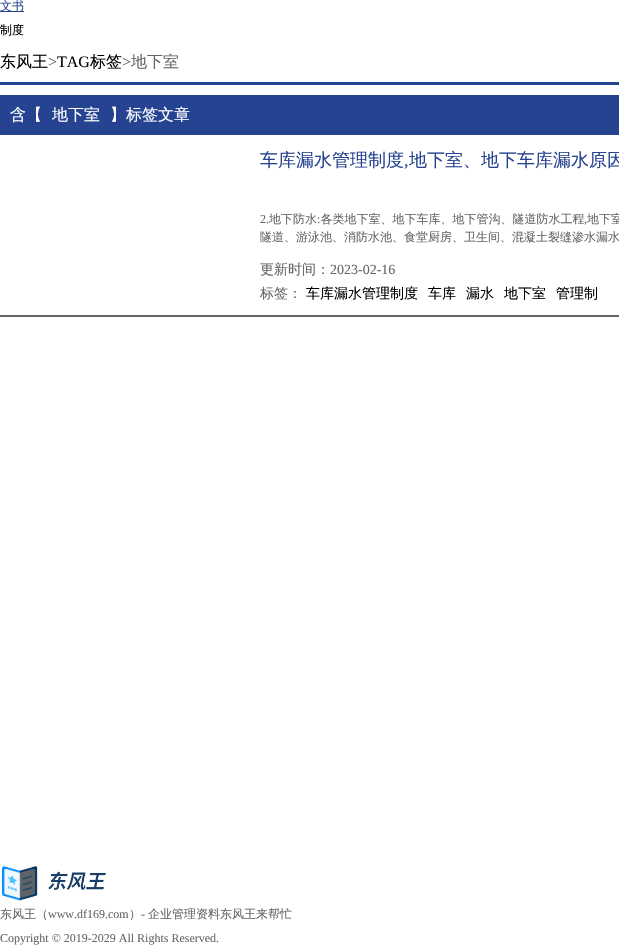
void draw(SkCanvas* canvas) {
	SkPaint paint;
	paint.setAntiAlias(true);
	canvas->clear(0xffffffff);
	paint.setColor(0xff254390);
	canvas->drawRect(SkRect::MakeXYWH(0, 11, 24, 1), paint);
	SkFont f1(fontMgr->matchFamilyStyle("WenQuanYi Zen Hei", SkFontStyle(500, SkFontStyle::kNormal_Width, SkFontStyle::kUpright_Slant)), 12);
	f1.setSubpixel(true);
	canvas->drawString("文书", 0, 10, f1, paint);
	paint.setColor(0xff000000);
	canvas->drawString("制度", 0, 34, f1, paint);
	paint.setColor(0xff254390);
	canvas->drawRect(SkRect::MakeXYWH(0, 82, 619, 3), paint);
	SkFont f2(fontMgr->matchFamilyStyle("WenQuanYi Zen Hei", SkFontStyle(500, SkFontStyle::kNormal_Width, SkFontStyle::kUpright_Slant)), 16);
	f2.setSubpixel(true);
	paint.setColor(0xff000000);
	canvas->drawString("东风王", 0, 67, f2, paint);
	SkFont f3(fontMgr->matchFamilyStyle("Liberation Serif", SkFontStyle::Normal()), 16);
	f3.setSubpixel(true);
	paint.setColor(0xff666666);
	canvas->drawString(">", 48, 67, f3, paint);
	paint.setColor(0xff000000);
	canvas->drawString("TAG", 57, 67, f3, paint);
	canvas->drawString("标签", 90, 67, f2, paint);
	paint.setColor(0xff666666);
	canvas->drawString(">", 122, 67, f3, paint);
	canvas->drawString("地下室", 131, 67, f2, paint);
	paint.setColor(0xff254390);
	canvas->drawRect(SkRect::MakeXYWH(0, 95, 619, 40), paint);
	paint.setColor(0xffffffff);
	canvas->drawString("含【", 10, 120, f2, paint);
	canvas->drawString("地下室", 52, 120, f2, paint);
	canvas->drawString("】标签文章", 110, 120, f2, paint);
	paint.setColor(0xff666666);
	canvas->drawRect(SkRect::MakeXYWH(0, 315, 619, 2), paint);
	SkFont f4(fontMgr->matchFamilyStyle("WenQuanYi Zen Hei", SkFontStyle(500, SkFontStyle::kNormal_Width, SkFontStyle::kUpright_Slant)), 18);
	f4.setSubpixel(true);
	paint.setColor(0xff254390);
	canvas->drawString("车库漏水管理制度", 260, 166, f4, paint);
	SkFont f5(fontMgr->matchFamilyStyle("Liberation Serif", SkFontStyle::Normal()), 18);
	f5.setSubpixel(true);
	canvas->drawString(",", 404, 166, f5, paint);
	canvas->drawString("地下室、地下车库漏水原因", 409, 166, f4, paint);
	SkFont f6(fontMgr->matchFamilyStyle("Liberation Serif", SkFontStyle::Normal()), 12);
	f6.setSubpixel(true);
	paint.setColor(0xff666666);
	canvas->drawString("2.", 260, 223, f6, paint);
	canvas->drawString("地下防水 各类地下室、地下车库、地下管沟、隧道防水工程", 269, 223, f1, paint);
	canvas->drawString("地下室", 587, 223, f1, paint);
	canvas->drawString(":", 317, 223, f6, paint);
	canvas->drawString(",", 584, 223, f6, paint);
	canvas->drawString("隧道、游泳池、消防水池、食堂厨房、卫生间、混凝土裂缝渗水漏水", 260, 241, f1, paint);
	SkFont f7(fontMgr->matchFamilyStyle("WenQuanYi Zen Hei", SkFontStyle(500, SkFontStyle::kNormal_Width, SkFontStyle::kUpright_Slant)), 14);
	f7.setSubpixel(true);
	canvas->drawString("更新时间：", 260, 274, f7, paint);
	SkFont f8(fontMgr->matchFamilyStyle("Liberation Serif", SkFontStyle::Normal()), 14);
	f8.setSubpixel(true);
	canvas->drawString("2023-02-16", 330, 274, f8, paint);
	canvas->drawString("标签：", 260, 298, f7, paint);
	paint.setColor(0xff000000);
	canvas->drawString("车库漏水管理制度", 306, 298, f7, paint);
	canvas->drawString("车库", 428, 298, f7, paint);
	canvas->drawString("漏水", 466, 298, f7, paint);
	canvas->drawString("地下室", 504, 298, f7, paint);
	canvas->drawString("管理制", 556, 298, f7, paint);
	canvas->drawImageRect(SkImages::DeferredFromEncodedData(SkData::MakeFromFileName("img1.png")), SkRect::MakeXYWH(2, 866, 104, 35), SkSamplingOptions());
	paint.setColor(0xff666666);
	canvas->drawString("东风王（", 0, 918, f1, paint);
	canvas->drawString("www.df169.com", 48, 918, f6, paint);
	canvas->drawString("）", 129, 918, f1, paint);
	canvas->drawString("-", 141, 918, f6, paint);
	canvas->drawString("企业管理资料东风王来帮忙", 148, 918, f1, paint);
	canvas->drawString("Copyright © 2019-2029 All Rights Reserved.", 0, 942, f6, paint);
}
